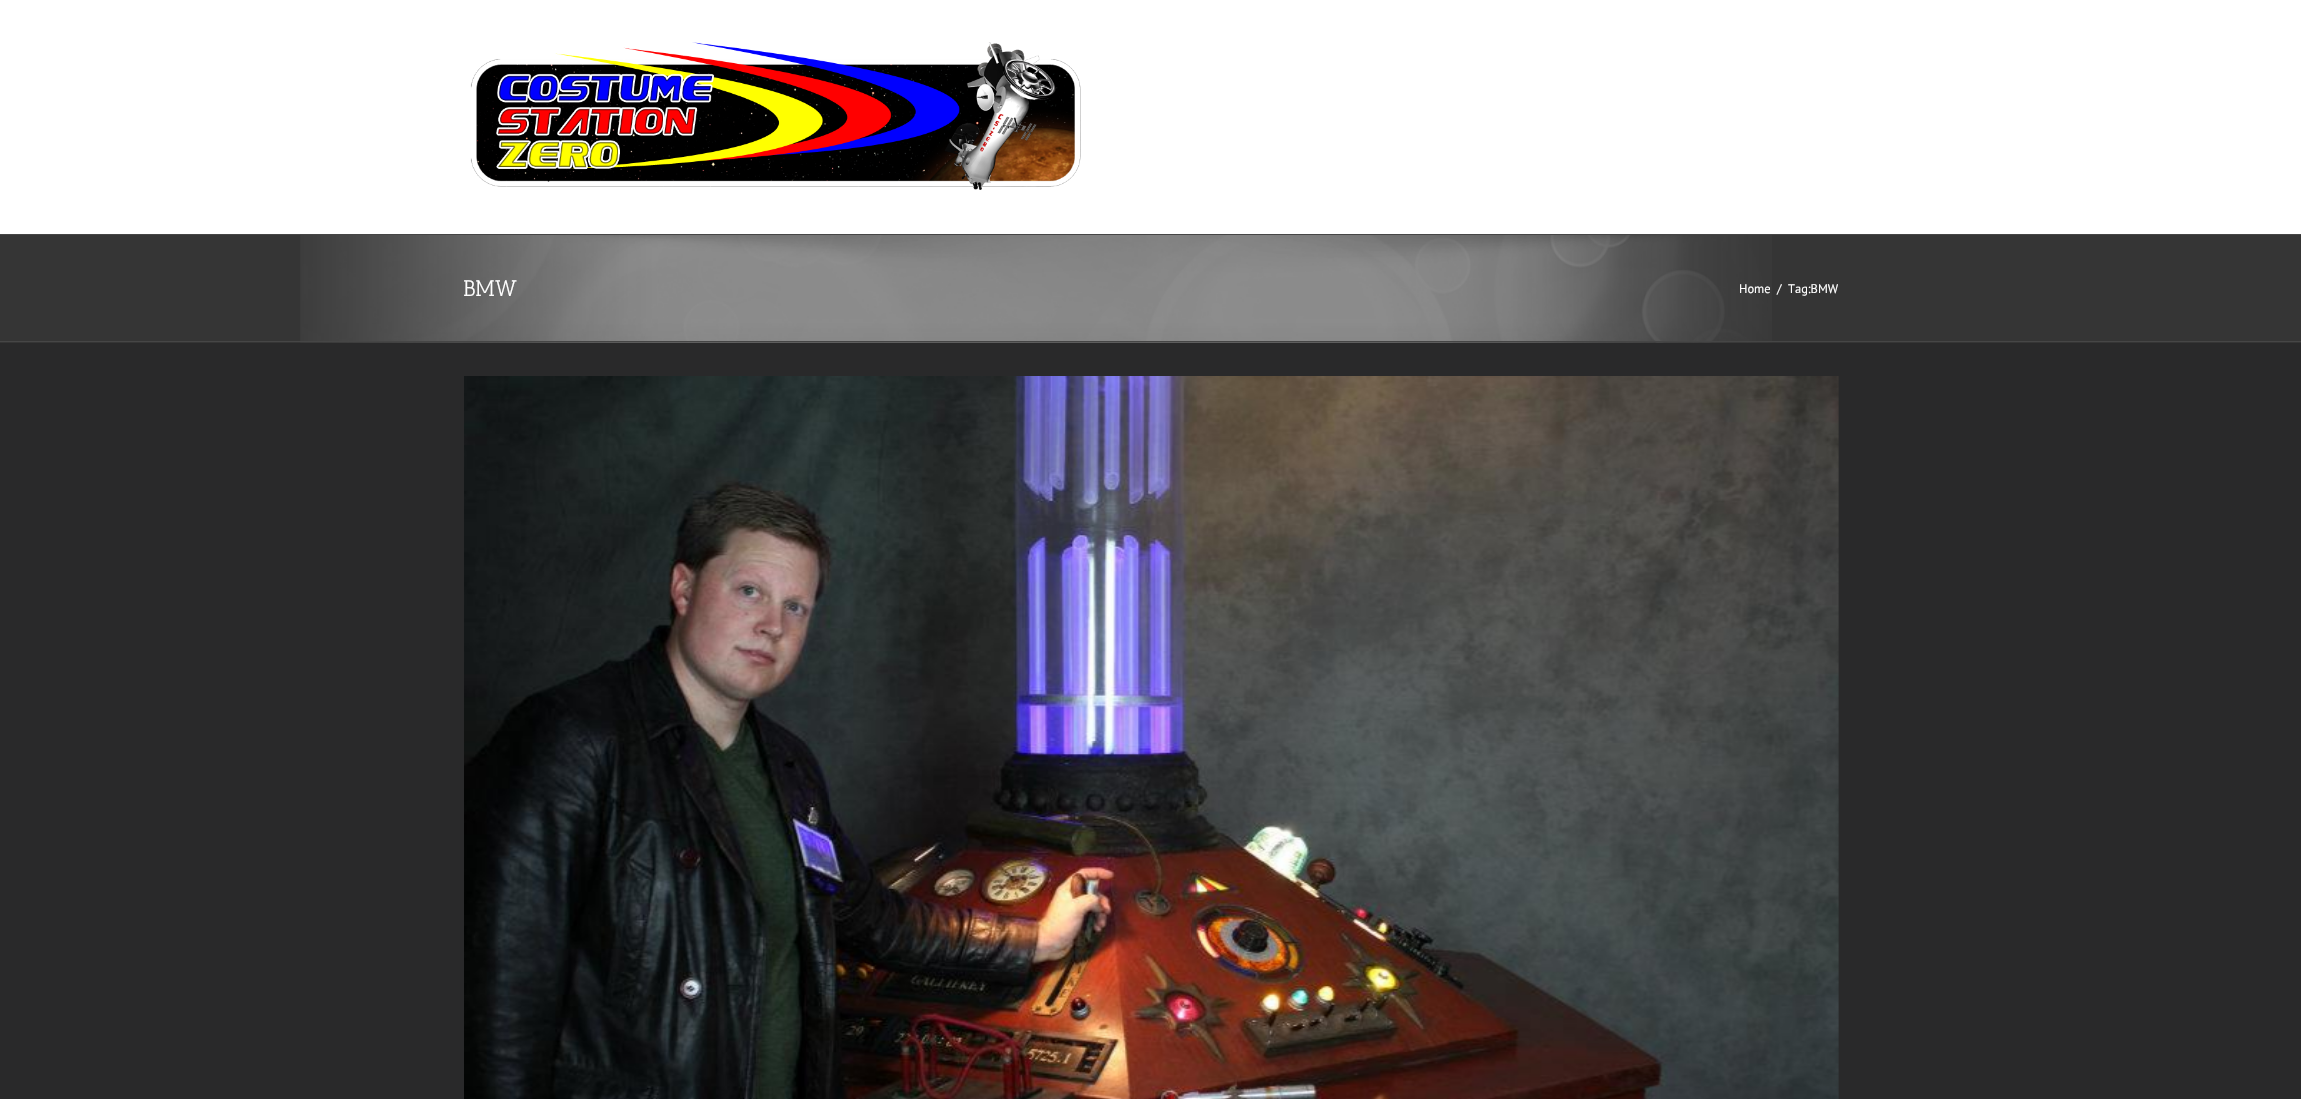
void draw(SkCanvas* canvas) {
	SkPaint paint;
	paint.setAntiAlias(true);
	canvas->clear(0xff29292a);
	paint.setColor(0xffffffff);
	canvas->drawRect(SkRect::MakeXYWH(0, 0, 2301, 234), paint);
	canvas->drawImageRect(SkImages::DeferredFromEncodedData(SkData::MakeFromFileName("img1.png")), SkRect::MakeXYWH(470, 42, 611, 148), SkSamplingOptions());
	paint.setColor(0xff353535);
	canvas->drawRect(SkRect::MakeXYWH(0, 235, 2301, 108), paint);
	canvas->drawImageRect(SkImages::DeferredFromEncodedData(SkData::MakeFromFileName("img2.png")), SkRect::MakeXYWH(300, 235, 1472, 108), SkSamplingOptions());
	paint.setColor(0xff464646);
	canvas->drawRect(SkRect::MakeXYWH(0, 234, 2301, 1), paint);
	canvas->drawRect(SkRect::MakeXYWH(0, 341, 2301, 1), paint);
	SkFont f1(fontMgr->matchFamilyStyle("Antic Slab", SkFontStyle::Normal()), 22.5);
	f1.setSubpixel(true);
	paint.setColor(0xffffffff);
	canvas->drawString("BMW", 463, 296, f1, paint);
	SkFont f2(fontMgr->matchFamilyStyle("PT Sans", SkFontStyle::Normal()), 12.5);
	f2.setSubpixel(true);
	canvas->drawString("Home", 1739, 293, f2, paint);
	canvas->drawString("/", 1777, 293, f2, paint);
	canvas->drawString("Tag:BMW", 1788, 293, f2, paint);
	canvas->drawImageRect(SkImages::DeferredFromEncodedData(SkData::MakeFromFileName("img3.png")), SkRect::MakeXYWH(464, 376, 1375, 723), SkSamplingOptions());
}
